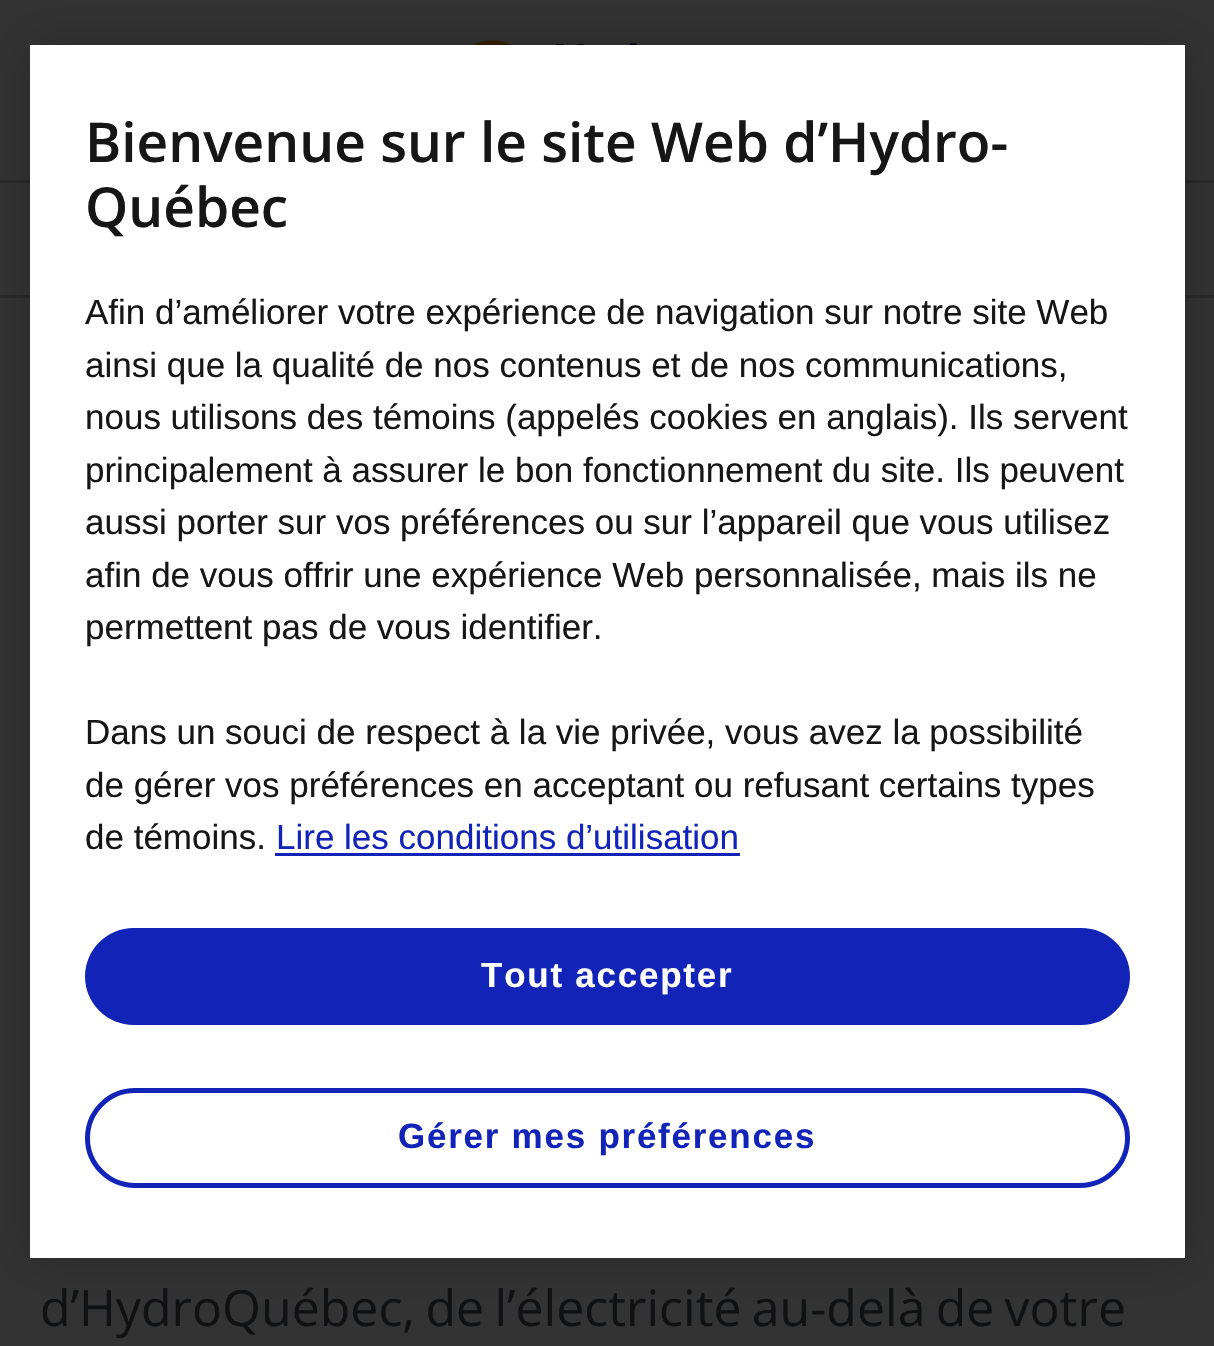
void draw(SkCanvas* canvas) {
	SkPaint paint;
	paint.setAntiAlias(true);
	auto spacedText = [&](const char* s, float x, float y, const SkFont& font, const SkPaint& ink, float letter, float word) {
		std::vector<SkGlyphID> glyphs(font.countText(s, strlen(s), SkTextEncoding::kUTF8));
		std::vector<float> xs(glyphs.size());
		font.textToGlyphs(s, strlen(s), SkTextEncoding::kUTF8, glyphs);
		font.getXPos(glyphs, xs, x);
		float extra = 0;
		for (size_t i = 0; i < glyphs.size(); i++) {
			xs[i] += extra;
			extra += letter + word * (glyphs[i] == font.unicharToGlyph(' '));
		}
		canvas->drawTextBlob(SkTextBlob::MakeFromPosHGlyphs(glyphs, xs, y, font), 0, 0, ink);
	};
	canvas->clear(0xff333333);
	canvas->drawImageRect(SkImages::DeferredFromEncodedData(SkData::MakeFromFileName("img1.png")), SkRect::MakeXYWH(473, 40, 164, 5), SkSamplingOptions());
	paint.setColor(0xff292929);
	canvas->drawRect(SkRect::MakeXYWH(0, 180, 1214, 3), paint);
	canvas->drawRect(SkRect::MakeXYWH(0, 295, 1214, 3), paint);
	paint.setColor(0x33000000);
	paint.setMaskFilter(SkMaskFilter::MakeBlur(kNormal_SkBlurStyle, 22.5));
	canvas->drawRect(SkRect::MakeXYWH(30, 45, 1155, 1213), paint);
	paint.setMaskFilter(nullptr);
	paint.setColor(0xffffffff);
	canvas->drawRect(SkRect::MakeXYWH(30, 45, 1155, 1213), paint);
	SkFont f1(fontMgr->matchFamilyStyle("Open Sans", SkFontStyle(600, SkFontStyle::kNormal_Width, SkFontStyle::kUpright_Slant)), 55);
	f1.setSubpixel(true);
	paint.setColor(0xff161616);
	canvas->drawString("Bienvenue sur le site Web d’Hydro-", 85, 162, f1, paint);
	canvas->drawString("Québec", 85, 227, f1, paint);
	SkFont f2(fontMgr->matchFamilyStyle("Liberation Sans", SkFontStyle::Normal()), 35);
	f2.setSubpixel(true);
	canvas->drawString("Afin d’améliorer votre expérience de navigation sur notre site Web", 85, 324, f2, paint);
	canvas->drawString("ainsi que la qualité de nos contenus et de nos communications,", 85, 377, f2, paint);
	canvas->drawString("nous utilisons des témoins (appelés cookies en anglais). Ils servent", 85, 429, f2, paint);
	canvas->drawString("principalement à assurer le bon fonctionnement du site. Ils peuvent", 85, 482, f2, paint);
	canvas->drawString("aussi porter sur vos préférences ou sur l’appareil que vous utilisez", 85, 534, f2, paint);
	canvas->drawString("afin de vous offrir une expérience Web personnalisée, mais ils ne", 85, 587, f2, paint);
	canvas->drawString("permettent pas de vous identifier.", 85, 639, f2, paint);
	canvas->drawString("Dans un souci de respect à la vie privée, vous avez la possibilité", 85, 744, f2, paint);
	canvas->drawString("de gérer vos préférences en acceptant ou refusant certains types", 85, 797, f2, paint);
	canvas->drawString("de témoins.", 85, 849, f2, paint);
	paint.setColor(0xff1224b8);
	canvas->drawString("Lire les conditions d’utilisation", 276, 849, f2, paint);
	canvas->drawRect(SkRect::MakeXYWH(275, 853, 465, 3), paint);
	canvas->drawRoundRect(SkRect::MakeXYWH(85, 928, 1045, 97), 48.5, 48.5, paint);
	SkFont f3(fontMgr->matchFamilyStyle("Liberation Sans", SkFontStyle::Bold()), 35);
	f3.setSubpixel(true);
	paint.setColor(0xffffffff);
	spacedText("Tout accepter", 481, 987, f3, paint, 1.75, 0);
	paint.setStroke(true);
	paint.setStrokeWidth(5);
	paint.setColor(0xff1224b8);
	canvas->drawRoundRect(SkRect::MakeXYWH(87.5, 1090.5, 1040, 95), 47.5, 47.5, paint);
	paint.setStroke(false);
	spacedText("Gérer mes préférences", 398, 1148, f3, paint, 1.75, 0);
	SkFont f4(fontMgr->matchFamilyStyle("Open Sans", SkFontStyle::Normal()), 50);
	f4.setSubpixel(true);
	paint.setColor(0xff101113);
	spacedText("d’Hydro‑Québec, de l’électricité au-delà de votre", 40, 1326, f4, paint, 0, -2.75);
}
